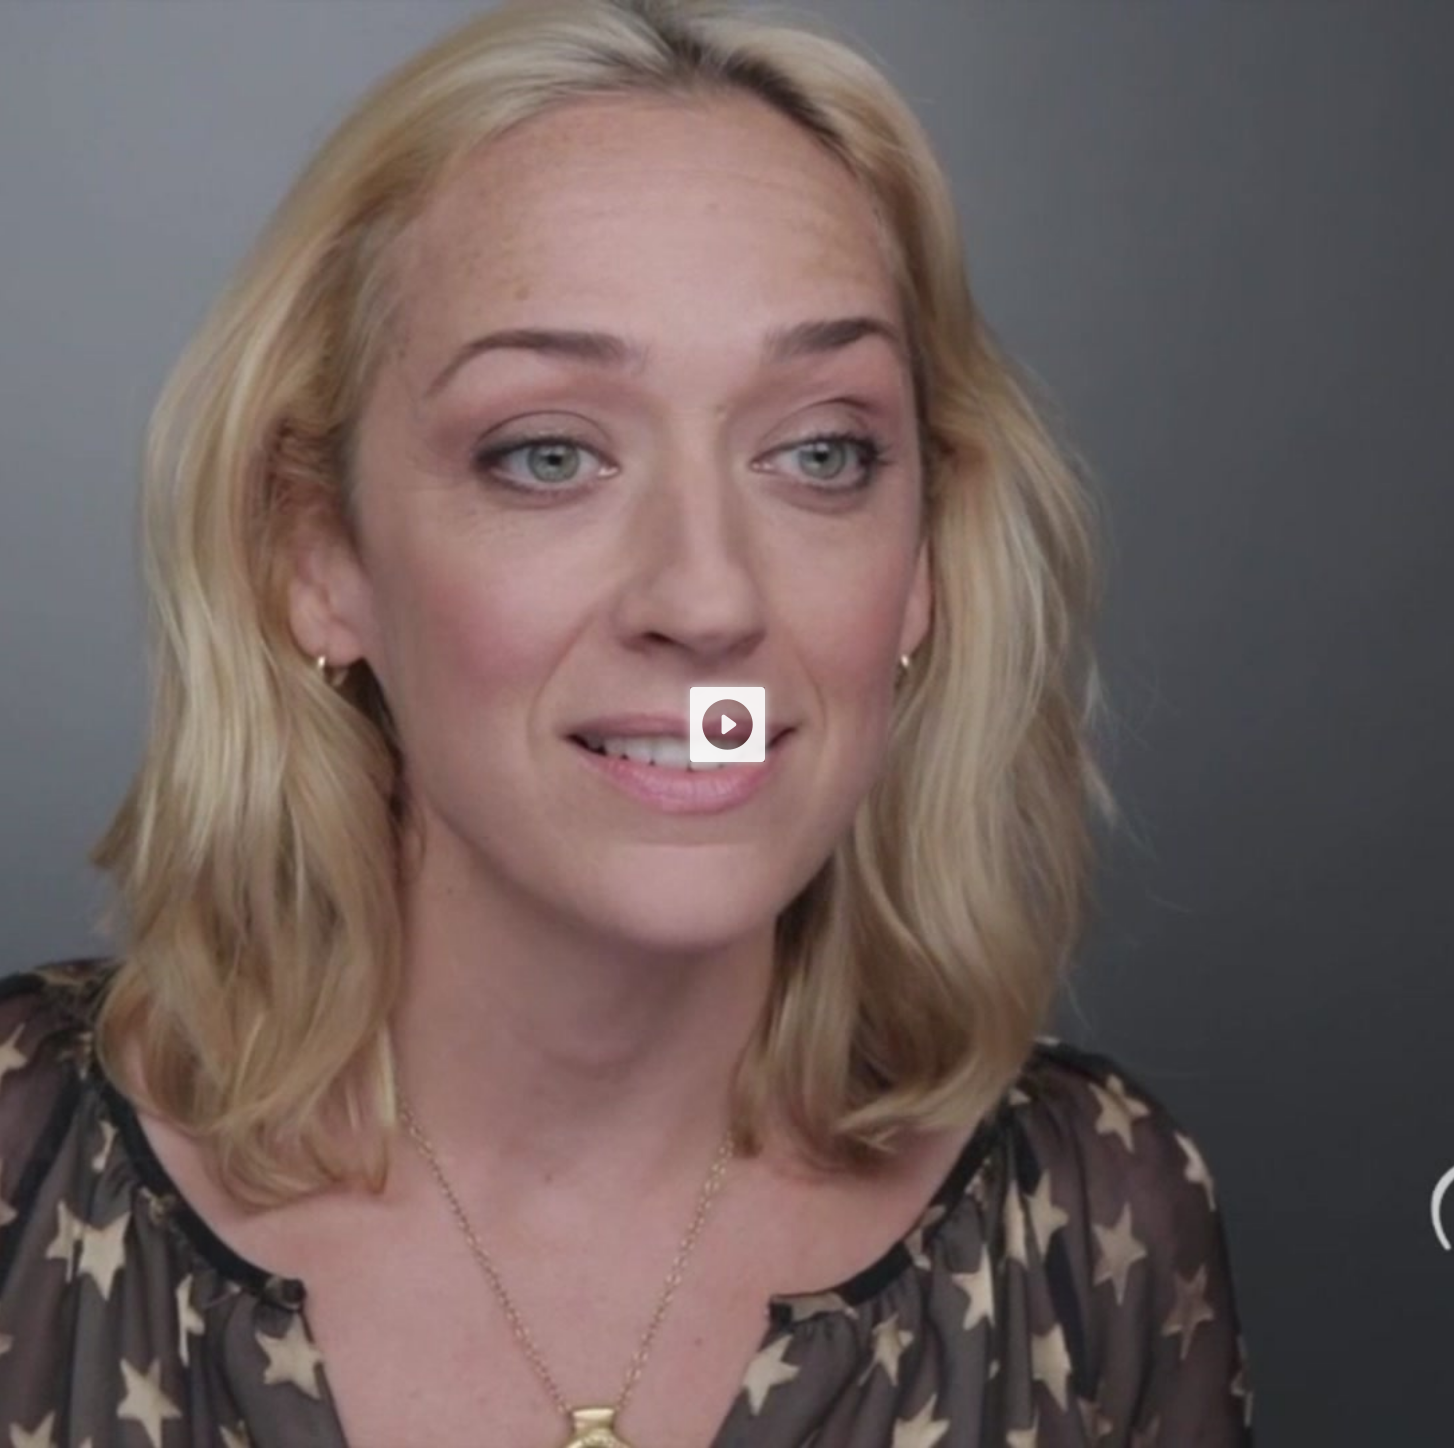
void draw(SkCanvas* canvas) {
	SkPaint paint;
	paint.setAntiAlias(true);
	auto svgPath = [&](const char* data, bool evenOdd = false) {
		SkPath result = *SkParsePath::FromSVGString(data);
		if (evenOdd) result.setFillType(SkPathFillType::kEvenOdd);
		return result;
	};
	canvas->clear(0xffffffff);
	canvas->drawImageRect(SkImages::DeferredFromEncodedData(SkData::MakeFromFileName("img1.png")), SkRect::MakeXYWH(0, 0, 1454, 1448), SkSamplingOptions());
	canvas->save();
	canvas->clipPath(svgPath("M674 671H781V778H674ZM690 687H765V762H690Z", true), true);
	paint.setColor(0xffcccccc);
	paint.setMaskFilter(SkMaskFilter::MakeBlur(kNormal_SkBlurStyle, 5));
	canvas->drawRect(SkRect::MakeXYWH(690, 687, 75, 75), paint);
	paint.setMaskFilter(nullptr);
	canvas->restore();
	paint.setColor(0x1a000000);
	canvas->drawRect(SkRect::MakeXYWH(690, 687, 75, 75), paint);
	canvas->drawImageRect(SkImages::DeferredFromEncodedData(SkData::MakeFromFileName("img2.png")), SkRect::MakeXYWH(690, 687, 75, 75), SkSamplingOptions());
}
